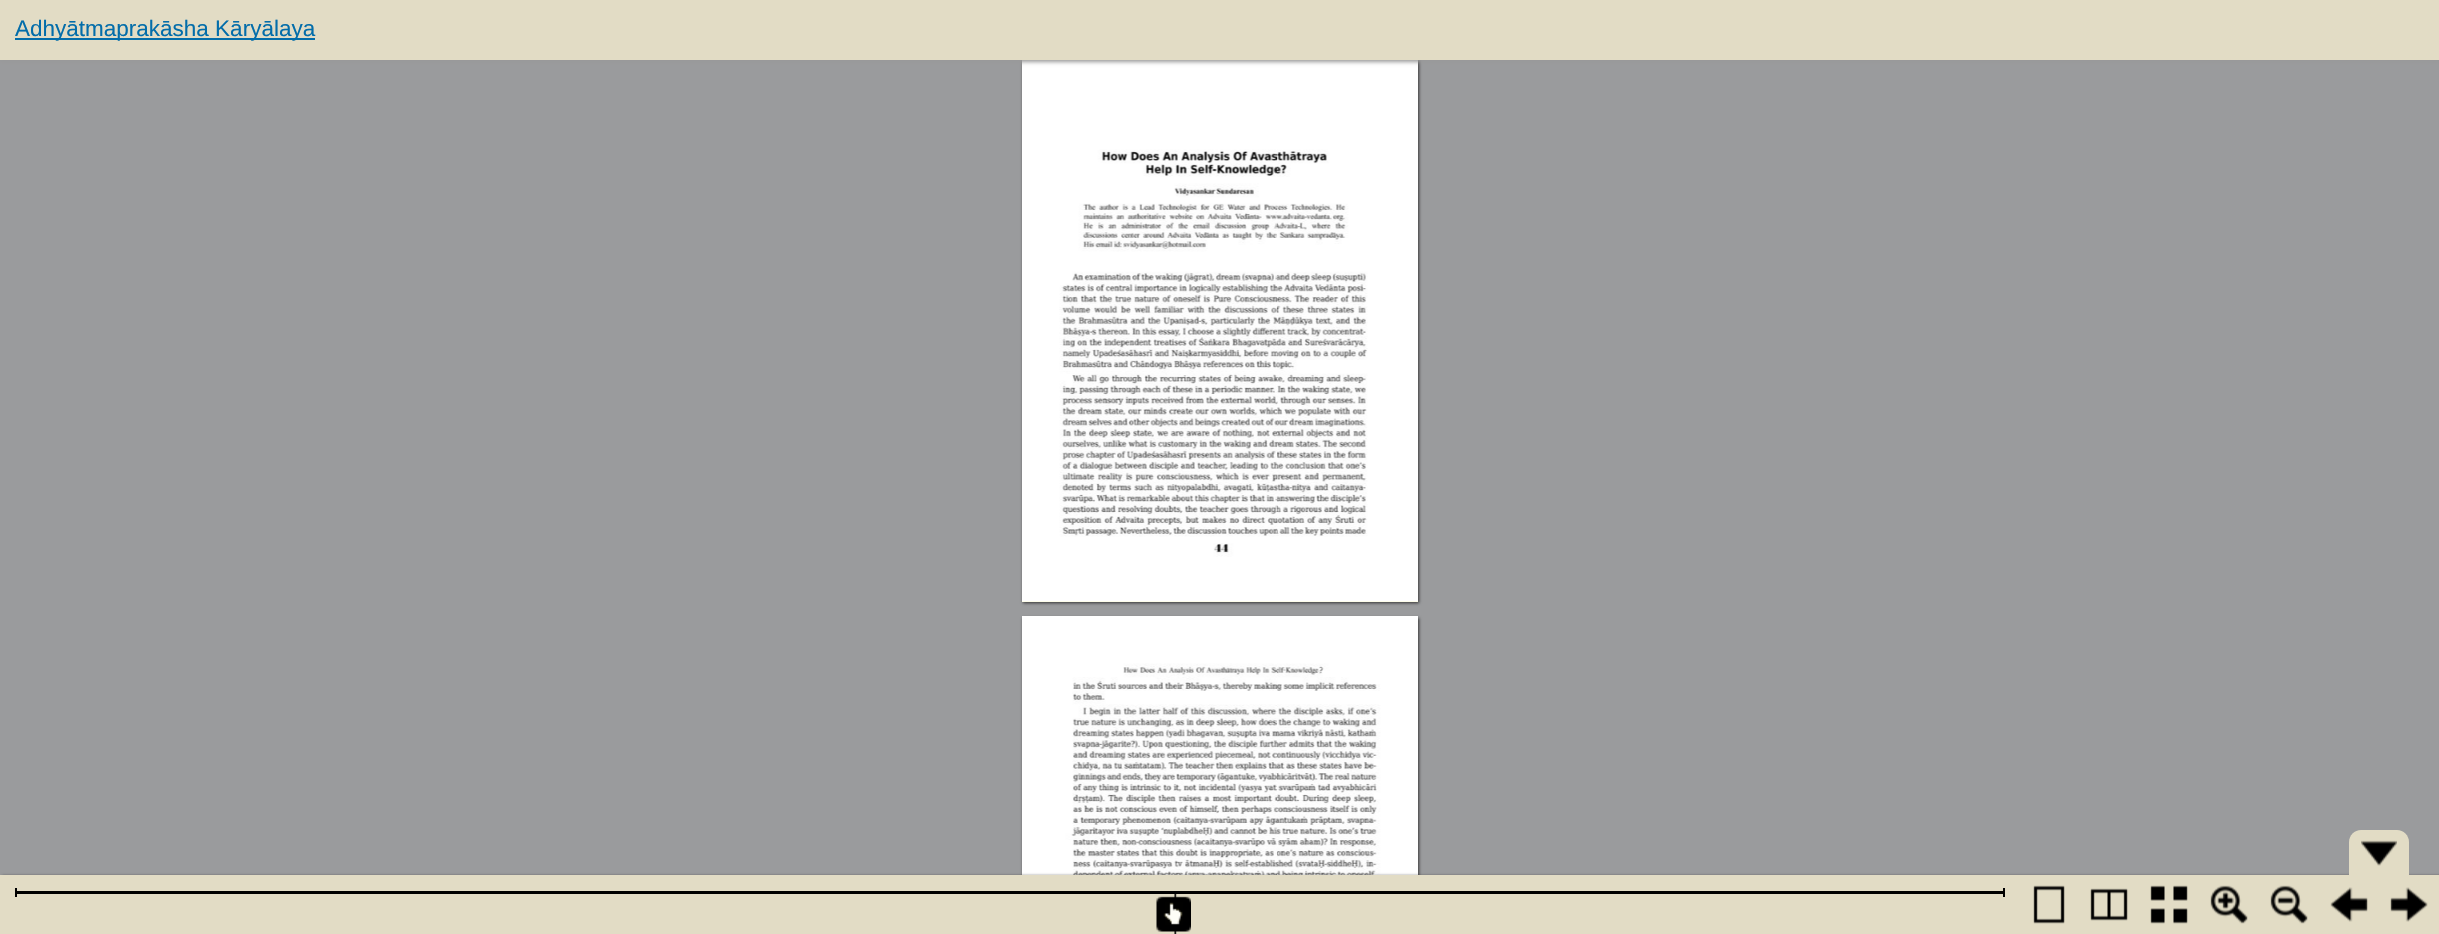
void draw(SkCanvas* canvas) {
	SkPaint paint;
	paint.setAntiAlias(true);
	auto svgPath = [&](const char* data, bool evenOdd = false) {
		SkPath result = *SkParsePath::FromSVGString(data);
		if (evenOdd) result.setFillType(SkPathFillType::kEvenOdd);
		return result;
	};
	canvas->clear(0xff9a9b9d);
	paint.setColor(0xff333333);
	paint.setMaskFilter(SkMaskFilter::MakeBlur(kNormal_SkBlurStyle, 1.5));
	canvas->drawRect(SkRect::MakeXYWH(1023, 9, 396, 594), paint);
	paint.setMaskFilter(nullptr);
	canvas->drawImageRect(SkImages::DeferredFromEncodedData(SkData::MakeFromFileName("img1.png")), SkRect::MakeXYWH(1022, 60, 396, 541), SkSamplingOptions());
	paint.setColor(0xff999999);
	paint.setMaskFilter(SkMaskFilter::MakeBlur(kNormal_SkBlurStyle, 2));
	canvas->drawRect(SkRect::MakeXYWH(0, 2, 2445, 60), paint);
	paint.setMaskFilter(nullptr);
	paint.setColor(0xffe2dcc5);
	canvas->drawRect(SkRect::MakeXYWH(0, 0, 2439, 60), paint);
	paint.setColor(0xff036daa);
	canvas->drawRect(SkRect::MakeXYWH(15, 38, 300, 2), paint);
	SkFont f1(fontMgr->matchFamilyStyle("Liberation Sans", SkFontStyle::Normal()), 22.5);
	f1.setSubpixel(true);
	canvas->drawString("Adhyātmaprakāsha Kāryālaya", 15, 36, f1, paint);
	paint.setColor(0xfffefdeb);
	canvas->drawRect(SkRect::MakeXYWH(1022, 601, 396, 1), paint);
	paint.setColor(0xff333333);
	paint.setMaskFilter(SkMaskFilter::MakeBlur(kNormal_SkBlurStyle, 1.5));
	canvas->drawRect(SkRect::MakeXYWH(1023, 618, 396, 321), paint);
	paint.setMaskFilter(nullptr);
	canvas->drawImageRect(SkImages::DeferredFromEncodedData(SkData::MakeFromFileName("img2.png")), SkRect::MakeXYWH(1022, 616, 396, 259), SkSamplingOptions());
	paint.setMaskFilter(SkMaskFilter::MakeBlur(kNormal_SkBlurStyle, 1.5));
	canvas->drawRect(SkRect::MakeXYWH(2, 876, 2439, 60), paint);
	paint.setMaskFilter(nullptr);
	paint.setColor(0xffe2dcc5);
	canvas->drawRect(SkRect::MakeXYWH(0, 875, 2439, 59), paint);
	canvas->drawPath(svgPath("M2361 830H2397C2403.5 830 2409 835.5 2409 842V875H2349V842C2349 835.5 2354.5 830 2361 830Z"), paint);
	canvas->drawImageRect(SkImages::DeferredFromEncodedData(SkData::MakeFromFileName("img3.png")), SkRect::MakeXYWH(2361, 840, 36, 26), SkSamplingOptions());
	paint.setColor(0xff000000);
	canvas->drawRect(SkRect::MakeXYWH(15, 891, 1989, 3), paint);
	canvas->drawRect(SkRect::MakeXYWH(15, 888, 2, 9), paint);
	canvas->drawRect(SkRect::MakeXYWH(2003, 888, 2, 9), paint);
	canvas->drawImageRect(SkImages::DeferredFromEncodedData(SkData::MakeFromFileName("img4.png")), SkRect::MakeXYWH(1156, 894, 35, 40), SkSamplingOptions());
	canvas->drawImageRect(SkImages::DeferredFromEncodedData(SkData::MakeFromFileName("img5.png")), SkRect::MakeXYWH(2033, 885, 32, 39), SkSamplingOptions());
	canvas->drawImageRect(SkImages::DeferredFromEncodedData(SkData::MakeFromFileName("img6.png")), SkRect::MakeXYWH(2090, 888, 38, 33), SkSamplingOptions());
	canvas->drawImageRect(SkImages::DeferredFromEncodedData(SkData::MakeFromFileName("img7.png")), SkRect::MakeXYWH(2150, 885, 38, 39), SkSamplingOptions());
	canvas->drawImageRect(SkImages::DeferredFromEncodedData(SkData::MakeFromFileName("img8.png")), SkRect::MakeXYWH(2210, 885, 38, 39), SkSamplingOptions());
	canvas->drawImageRect(SkImages::DeferredFromEncodedData(SkData::MakeFromFileName("img9.png")), SkRect::MakeXYWH(2270, 885, 38, 39), SkSamplingOptions());
	canvas->drawImageRect(SkImages::DeferredFromEncodedData(SkData::MakeFromFileName("img10.png")), SkRect::MakeXYWH(2330, 887, 38, 35), SkSamplingOptions());
	canvas->drawImageRect(SkImages::DeferredFromEncodedData(SkData::MakeFromFileName("img11.png")), SkRect::MakeXYWH(2390, 887, 38, 35), SkSamplingOptions());
}
